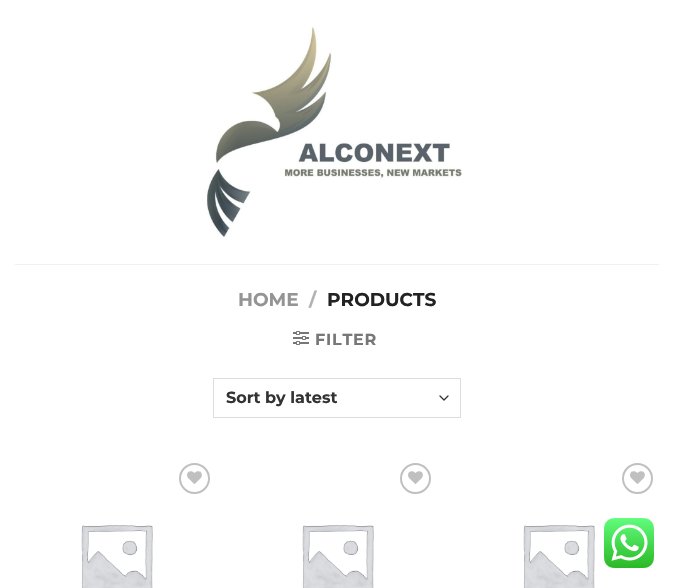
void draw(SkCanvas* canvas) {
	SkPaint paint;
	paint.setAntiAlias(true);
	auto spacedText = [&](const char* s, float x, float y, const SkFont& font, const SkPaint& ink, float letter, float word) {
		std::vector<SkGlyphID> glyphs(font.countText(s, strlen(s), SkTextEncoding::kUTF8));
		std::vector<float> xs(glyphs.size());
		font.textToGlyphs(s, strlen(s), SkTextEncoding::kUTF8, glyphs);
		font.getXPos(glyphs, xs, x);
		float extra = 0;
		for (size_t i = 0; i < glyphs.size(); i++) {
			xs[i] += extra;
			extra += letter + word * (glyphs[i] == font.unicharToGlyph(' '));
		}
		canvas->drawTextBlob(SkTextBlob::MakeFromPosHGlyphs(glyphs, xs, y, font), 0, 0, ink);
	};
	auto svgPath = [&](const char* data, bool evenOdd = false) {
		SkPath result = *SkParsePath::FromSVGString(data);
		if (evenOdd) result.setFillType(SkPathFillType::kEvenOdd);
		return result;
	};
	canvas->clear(0xffffffff);
	canvas->drawImageRect(SkImages::DeferredFromEncodedData(SkData::MakeFromFileName("img1.png")), SkRect::MakeXYWH(206, 26, 256, 212), SkSamplingOptions());
	paint.setColor(0xfff1f1f1);
	canvas->drawRect(SkRect::MakeXYWH(15, 264, 644, 1), paint);
	SkFont f1(fontMgr->matchFamilyStyle("Montserrat", SkFontStyle::Bold()), 18.5);
	f1.setSubpixel(true);
	paint.setColor(0xff949494);
	canvas->drawString("HOME", 238, 306, f1, paint);
	paint.setColor(0xffb2b2b2);
	canvas->drawString("/", 309, 306, f1, paint);
	paint.setColor(0xff222222);
	canvas->drawString("PRODUCTS", 327, 306, f1, paint);
	canvas->drawImageRect(SkImages::DeferredFromEncodedData(SkData::MakeFromFileName("img2.png")), SkRect::MakeXYWH(293, 331, 16, 14), SkSamplingOptions());
	SkFont f2(fontMgr->matchFamilyStyle("Montserrat", SkFontStyle::Bold()), 16);
	f2.setSubpixel(true);
	paint.setColor(0xff777777);
	spacedText("FILTER", 315, 345, f2, paint, 0.75, 0);
	paint.setStroke(true);
	paint.setStrokeWidth(1.3);
	paint.setStrokeCap(SkPaint::kRound_Cap);
	paint.setStrokeJoin(SkPaint::kRound_Join);
	paint.setColor(0xff333333);
	canvas->drawPath(svgPath("M440 396L444 400L448 396"), paint);
	paint.setStrokeWidth(1);
	paint.setStrokeCap(SkPaint::kButt_Cap);
	paint.setStrokeJoin(SkPaint::kMiter_Join);
	paint.setColor(0xffdddddd);
	canvas->drawRect(SkRect::MakeXYWH(213.5, 378.5, 247, 39), paint);
	paint.setStroke(false);
	paint.setColor(0xff333333);
	canvas->drawString("Sort by latest", 226, 403, f2, paint);
	paint.setStroke(true);
	paint.setStrokeWidth(2);
	paint.setColor(0xffc0c0c0);
	canvas->drawCircle(194.5, 478.5, 14.5, paint);
	canvas->drawImageRect(SkImages::DeferredFromEncodedData(SkData::MakeFromFileName("img3.png")), SkRect::MakeXYWH(187, 471, 15, 13), SkSamplingOptions());
	canvas->drawImageRect(SkImages::DeferredFromEncodedData(SkData::MakeFromFileName("img4.png")), SkRect::MakeXYWH(81, 525, 72, 63), SkSamplingOptions());
	canvas->drawCircle(415.5, 478.5, 14.5, paint);
	canvas->drawImageRect(SkImages::DeferredFromEncodedData(SkData::MakeFromFileName("img3.png")), SkRect::MakeXYWH(408, 471, 15, 13), SkSamplingOptions());
	canvas->drawImageRect(SkImages::DeferredFromEncodedData(SkData::MakeFromFileName("img4.png")), SkRect::MakeXYWH(302, 525, 72, 63), SkSamplingOptions());
	canvas->drawCircle(637.5, 478.5, 14.5, paint);
	canvas->drawImageRect(SkImages::DeferredFromEncodedData(SkData::MakeFromFileName("img3.png")), SkRect::MakeXYWH(630, 471, 15, 13), SkSamplingOptions());
	canvas->drawImageRect(SkImages::DeferredFromEncodedData(SkData::MakeFromFileName("img4.png")), SkRect::MakeXYWH(523, 525, 72, 63), SkSamplingOptions());
	canvas->drawImageRect(SkImages::DeferredFromEncodedData(SkData::MakeFromFileName("img5.png")), SkRect::MakeXYWH(604, 518, 50, 50), SkSamplingOptions());
}
